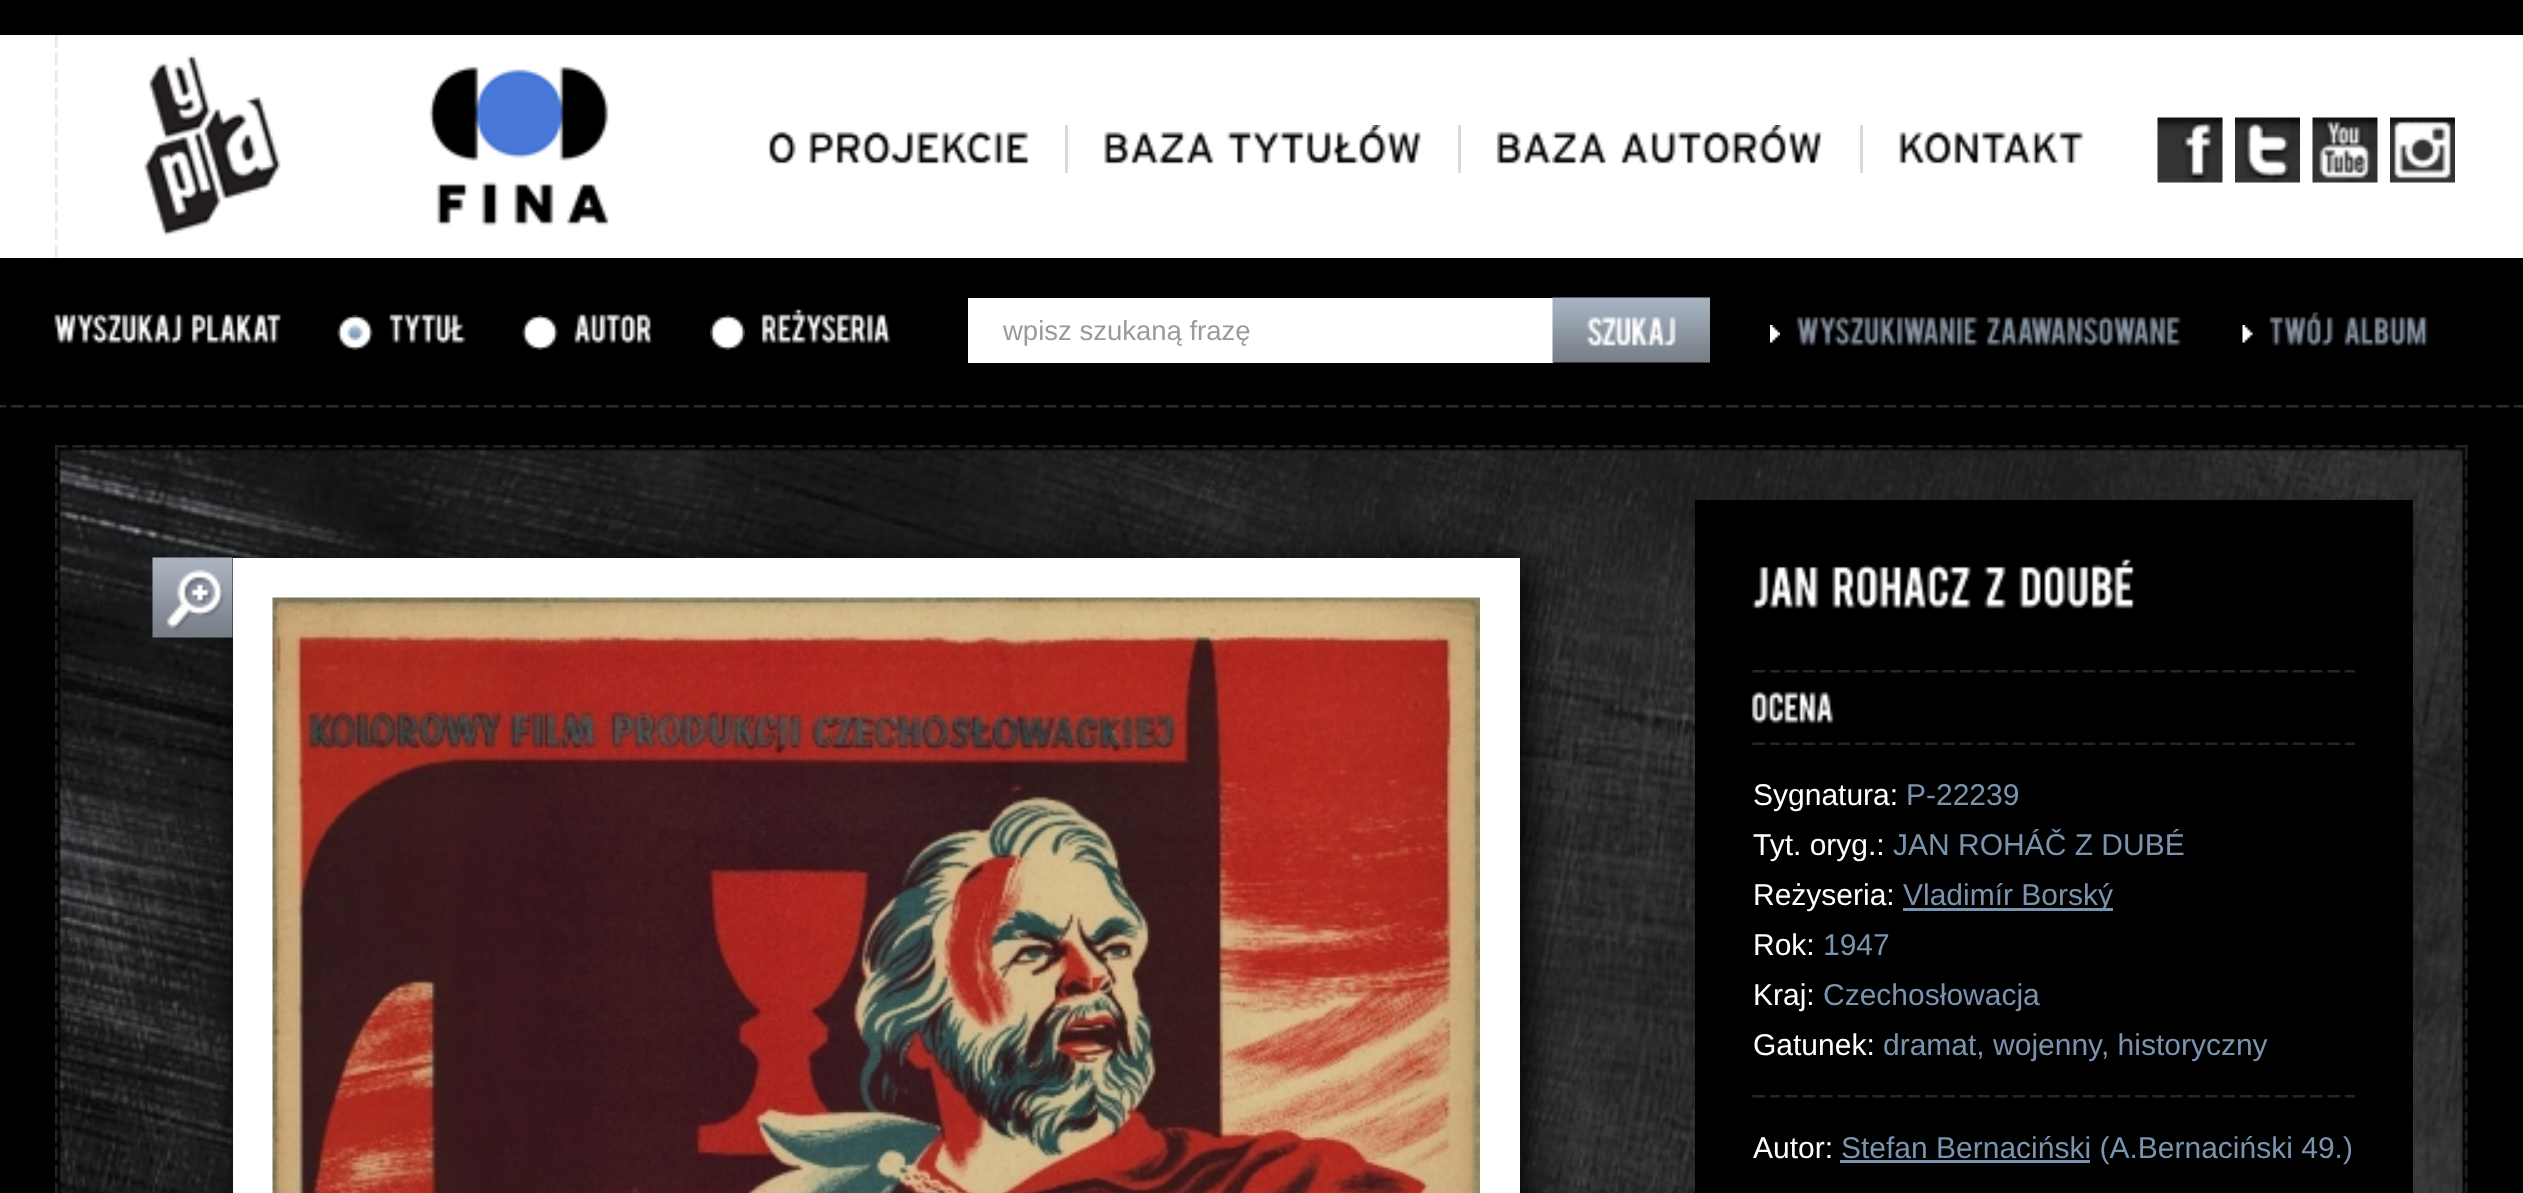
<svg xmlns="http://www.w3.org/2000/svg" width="2523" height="1193">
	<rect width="100%" height="100%" fill="#000000" />
	<rect x="0" y="35" width="2523" height="223" fill="#FFFFFF" />
	<image x="55" y="35" width="226" height="223" href="assets/img1.png" />
	<image x="429" y="66" width="180" height="160" href="assets/img2.png" />
	<rect x="1065" y="125" width="3" height="48" fill="#D9D9D9" />
	<image x="767" y="131" width="29" height="33" href="assets/img3.png" />
	<image x="809" y="131" width="220" height="33" href="assets/img4.png" />
	<rect x="1458" y="125" width="3" height="48" fill="#D9D9D9" />
	<image x="1104" y="131" width="110" height="33" href="assets/img5.png" />
	<image x="1227" y="125" width="194" height="39" href="assets/img6.png" />
	<rect x="1860" y="125" width="3" height="48" fill="#D9D9D9" />
	<image x="1496" y="131" width="110" height="33" href="assets/img7.png" />
	<image x="1620" y="125" width="203" height="39" href="assets/img8.png" />
	<image x="1899" y="131" width="185" height="33" href="assets/img9.png" />
	<image x="2157" y="117" width="66" height="66" href="assets/img10.png" />
	<image x="2235" y="117" width="65" height="66" href="assets/img11.png" />
	<image x="2312" y="117" width="66" height="66" href="assets/img12.png" />
	<image x="2390" y="117" width="65" height="66" href="assets/img13.png" />
	<image x="0" y="405" width="2523" height="3" href="assets/img14.png" />
	<image x="54" y="314" width="130" height="30" href="assets/img15.png" />
	<image x="191" y="314" width="90" height="30" href="assets/img16.png" />
	<image x="337" y="315" width="36" height="35" href="assets/img17.png" />
	<image x="389" y="314" width="77" height="30" href="assets/img18.png" />
	<image x="522" y="315" width="36" height="35" href="assets/img19.png" />
	<image x="574" y="314" width="79" height="30" href="assets/img20.png" />
	<image x="710" y="315" width="35" height="35" href="assets/img21.png" />
	<image x="761" y="309" width="130" height="35" href="assets/img22.png" />
	<rect x="968" y="298" width="585" height="65" fill="#FFFFFF" />
	<text x="1003" y="340" font-family="Liberation Sans" font-size="27.5" fill="#9A9A9A">wpisz szukaną frazę</text>
	<image x="1552" y="297" width="158" height="66" href="assets/img23.png" />
	<image x="1770" y="325" width="10" height="18" href="assets/img24.png" />
	<image x="1796" y="316" width="183" height="30" href="assets/img25.png" />
	<image x="1986" y="316" width="195" height="30" href="assets/img26.png" />
	<image x="2242" y="325" width="11" height="18" href="assets/img27.png" />
	<image x="2269" y="311" width="65" height="35" href="assets/img28.png" />
	<image x="2344" y="316" width="84" height="30" href="assets/img29.png" />
	<image x="55" y="445" width="2413" height="748" href="assets/img30.png" />
	<rect x="240" y="565" width="1288" height="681" fill="#000000" filter="blur(17.5px)" />
	<rect x="233" y="558" width="1287" height="635" fill="#FFFFFF" />
	<image x="152" y="557" width="81" height="81" href="assets/img31.png" />
	<image x="272" y="597" width="1208" height="596" href="assets/img32.png" />
	<rect x="1695" y="500" width="718" height="693" fill="#000000" />
	<image x="1752" y="566" width="67" height="43" href="assets/img33.png" />
	<image x="1832" y="564" width="139" height="45" href="assets/img34.png" />
	<image x="1984" y="566" width="22" height="43" href="assets/img35.png" />
	<image x="2019" y="559" width="116" height="50" href="assets/img36.png" />
	<image x="1752" y="670" width="603" height="3" href="assets/img37.png" />
	<image x="1751" y="691" width="83" height="33" href="assets/img38.png" />
	<image x="1752" y="742" width="603" height="3" href="assets/img39.png" />
	<text x="1753" y="805" font-family="Liberation Sans" font-size="30" fill="#FFFFFF">Sygnatura:</text>
	<text x="1906" y="805" font-family="Liberation Sans" font-size="30" fill="#7A93AF">P-22239</text>
	<text x="1753" y="855" font-family="Liberation Sans" font-size="30" fill="#FFFFFF">Tyt. oryg.:</text>
	<text x="1893" y="855" font-family="Liberation Sans" font-size="30" fill="#7A93AF">JAN ROHÁČ Z DUBÉ</text>
	<text x="1753" y="905" font-family="Liberation Sans" font-size="30" fill="#FFFFFF">Reżyseria:</text>
	<rect x="1903" y="908" width="210" height="3" fill="#7A93AF" />
	<text x="1903" y="905" font-family="Liberation Sans" font-size="30" fill="#7A93AF">Vladimír Borský</text>
	<text x="1753" y="955" font-family="Liberation Sans" font-size="30" fill="#FFFFFF">Rok:</text>
	<text x="1823" y="955" font-family="Liberation Sans" font-size="30" fill="#7A93AF">1947</text>
	<text x="1753" y="1005" font-family="Liberation Sans" font-size="30" fill="#FFFFFF">Kraj:</text>
	<text x="1823" y="1005" font-family="Liberation Sans" font-size="30" fill="#7A93AF">Czechosłowacja</text>
	<text x="1753" y="1055" font-family="Liberation Sans" font-size="30" fill="#FFFFFF">Gatunek:</text>
	<text x="1883" y="1055" font-family="Liberation Sans" font-size="30" fill="#7A93AF">dramat, wojenny, historyczny</text>
	<image x="1752" y="1095" width="603" height="3" href="assets/img37.png" />
	<text x="1753" y="1158" font-family="Liberation Sans" font-size="30" fill="#FFFFFF">Autor:</text>
	<rect x="1840" y="1160" width="250" height="3" fill="#7A93AF" />
	<text x="1841" y="1158" font-family="Liberation Sans" font-size="30" fill="#7A93AF">Stefan Bernaciński (A.Bernaciński 49.)</text>
</svg>
